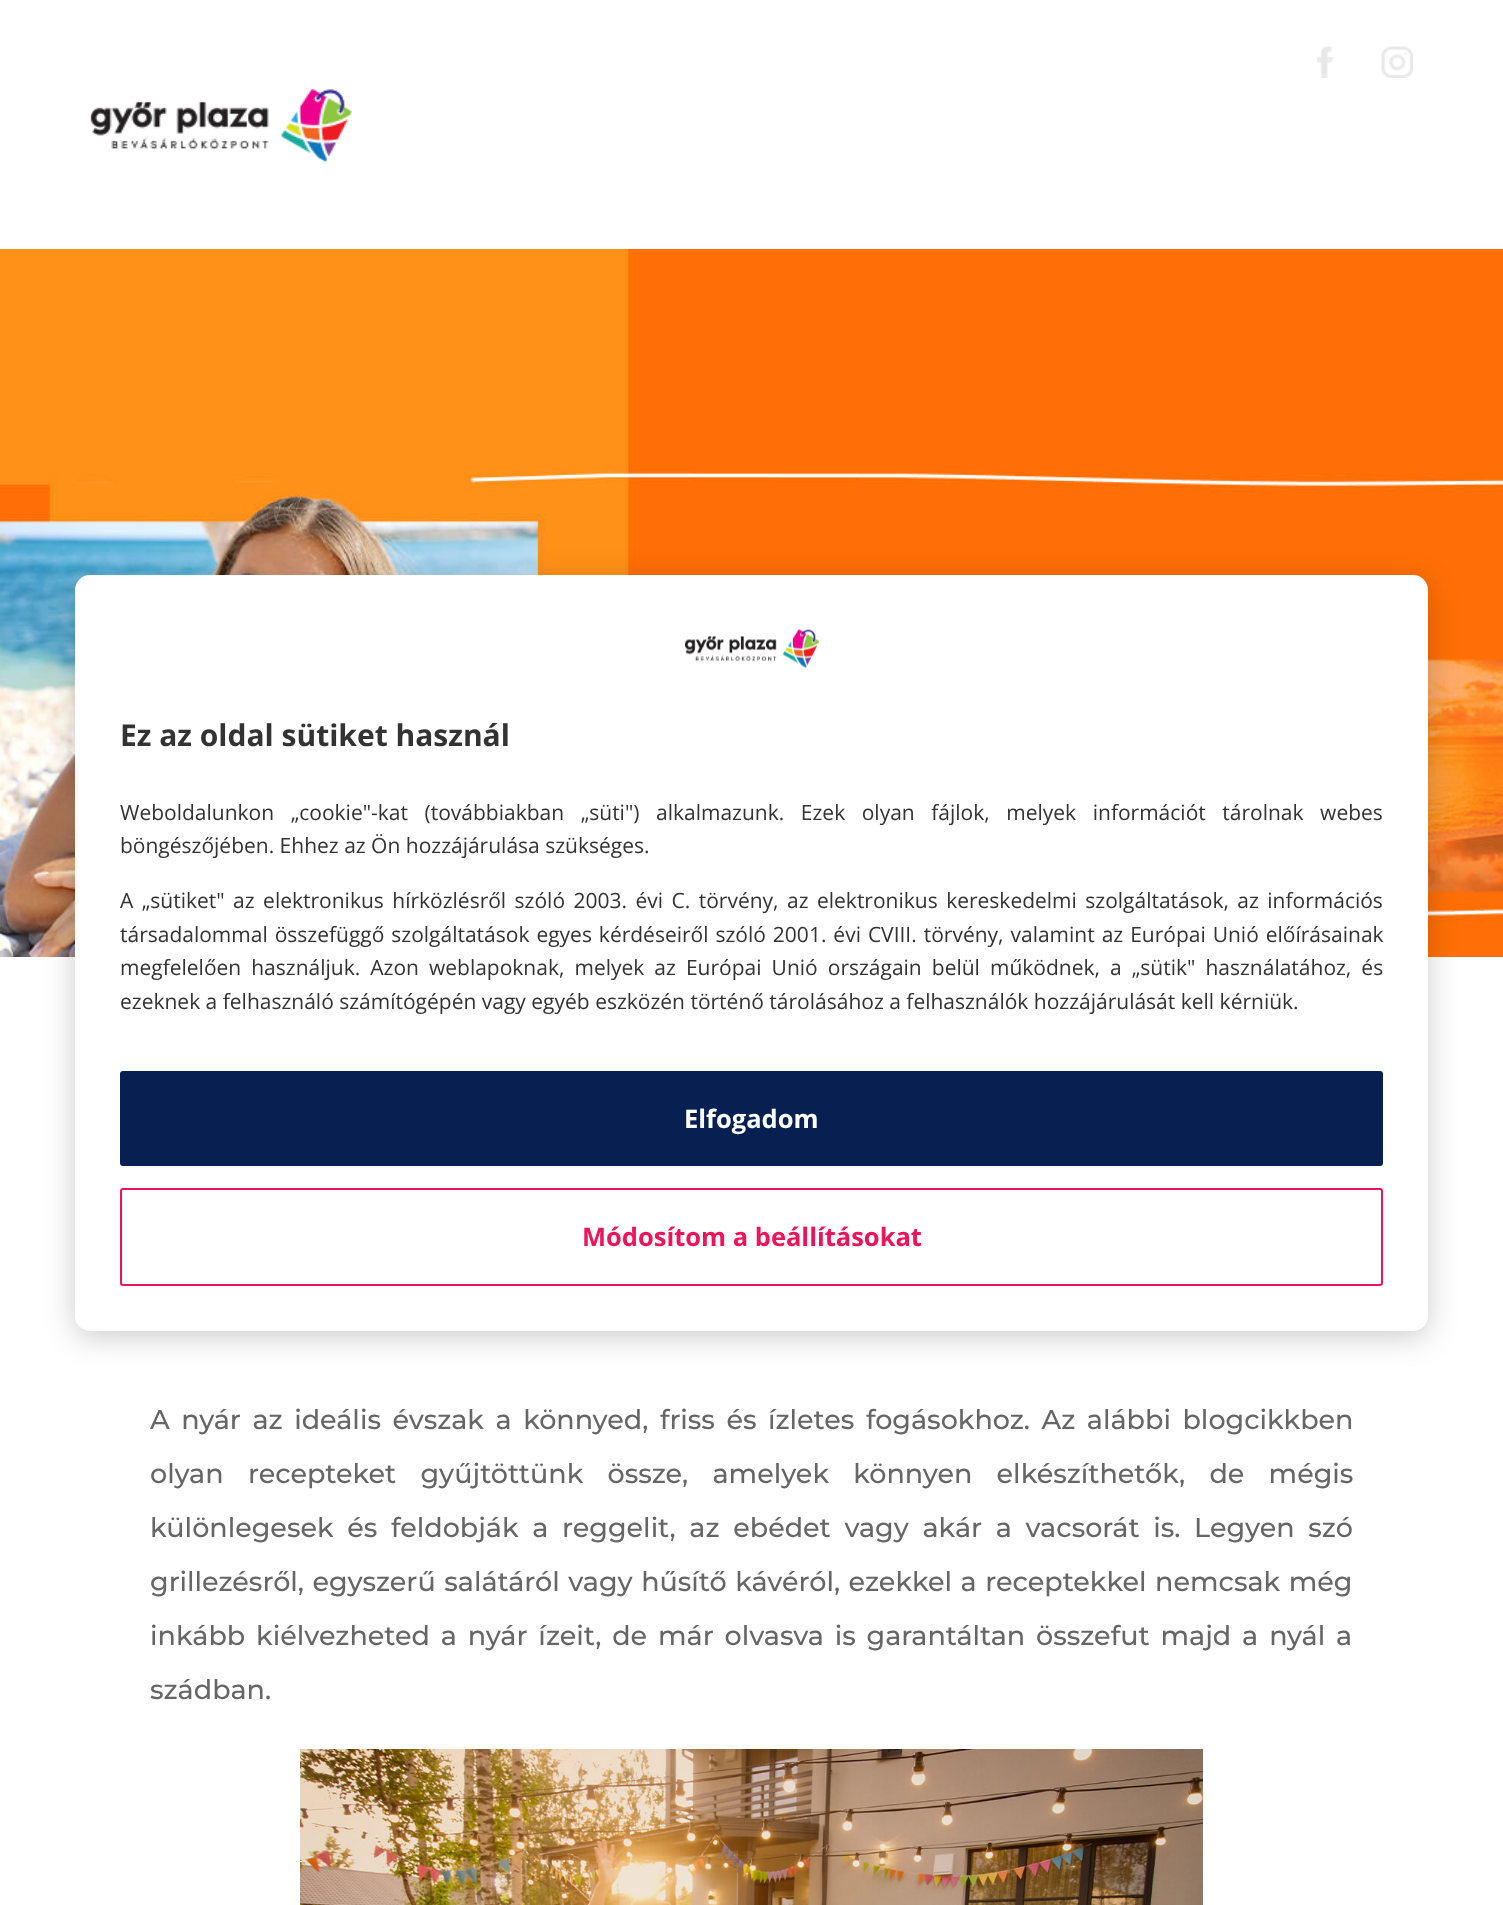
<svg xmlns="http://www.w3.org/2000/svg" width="1503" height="1905">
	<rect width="100%" height="100%" fill="#FFFFFF" />
	<image x="0" y="249" width="1503" height="708" href="assets/img5.png" />
	<rect x="75" y="581" width="1353" height="756" rx="15" fill="#000000" fill-opacity="0.2" filter="blur(15px)" />
	<rect x="75" y="575" width="1353" height="756" rx="15" fill="#FFFFFF" />
	<image x="685" y="629" width="135" height="39" href="assets/img1.png" />
	<text x="120" y="746" font-family="Open Sans" font-size="30" font-weight="700" fill="#333333">Ez az oldal sütiket használ</text>
	<g font-family="Open Sans" font-size="21" fill="#333333">
		<text x="120" y="820" word-spacing="11.1">Weboldalunkon „cookie"-kat (továbbiakban „süti") alkalmazunk. Ezek olyan fájlok, melyek információt tárolnak webes</text>
		<text x="120" y="853">böngészőjében. Ehhez az Ön hozzájárulása szükséges.</text>
		<text x="120" y="908" word-spacing="3">A „sütiket" az elektronikus hírközlésről szóló 2003. évi C. törvény, az elektronikus kereskedelmi szolgáltatások, az információs</text>
		<text x="120" y="942" word-spacing="1.5">társadalommal összefüggő szolgáltatások egyes kérdéseiről szóló 2001. évi CVIII. törvény, valamint az Európai Unió előírásainak</text>
		<text x="120" y="975" word-spacing="4.6">megfelelően használjuk. Azon weblapoknak, melyek az Európai Unió országain belül működnek, a „sütik" használatához, és</text>
		<text x="120" y="1009">ezeknek a felhasználó számítógépén vagy egyéb eszközén történő tárolásához a felhasználók hozzájárulását kell kérniük.</text>
	</g>
	<rect x="120" y="1071" width="1263" height="95" rx="3" fill="#082051" />
	<text x="684" y="1128" font-family="Open Sans" font-size="25.5" font-weight="700" fill="#FFFFFF">Elfogadom</text>
	<rect x="121" y="1189" width="1261" height="96" rx="2" fill="none" stroke="#ED145B" stroke-width="2" />
	<text x="582" y="1246" font-family="Open Sans" font-size="25.5" font-weight="700" fill="#ED145B">Módosítom a beállításokat</text>
	<image x="1317" y="46" width="17" height="32" href="assets/img2.png" />
	<image x="1381" y="46" width="32" height="32" href="assets/img3.png" />
	<image x="90" y="89" width="262" height="73" href="assets/img4.png" />
	<g font-family="Montserrat" font-size="27" font-weight="100" fill="#666666">
		<text x="150" y="1429" word-spacing="4.25">A nyár az ideális évszak a könnyed, friss és ízletes fogásokhoz. Az alábbi blogcikkben</text>
		<text x="150" y="1483" word-spacing="17">olyan recepteket gyűjtöttünk össze, amelyek könnyen elkészíthetők, de mégis</text>
		<text x="150" y="1537" word-spacing="6.4">különlegesek és feldobják a reggelit, az ebédet vagy akár a vacsorát is. Legyen szó</text>
		<text x="150" y="1591" word-spacing="1.25">grillezésről, egyszerű salátáról vagy hűsítő kávéról, ezekkel a receptekkel nemcsak még</text>
		<text x="150" y="1645" word-spacing="3.6">inkább kiélvezheted a nyár ízeit, de már olvasva is garantáltan összefut majd a nyál a</text>
		<text x="150" y="1699">szádban.</text>
	</g>
	<image x="300" y="1749" width="903" height="156" href="assets/img6.png" />
</svg>
